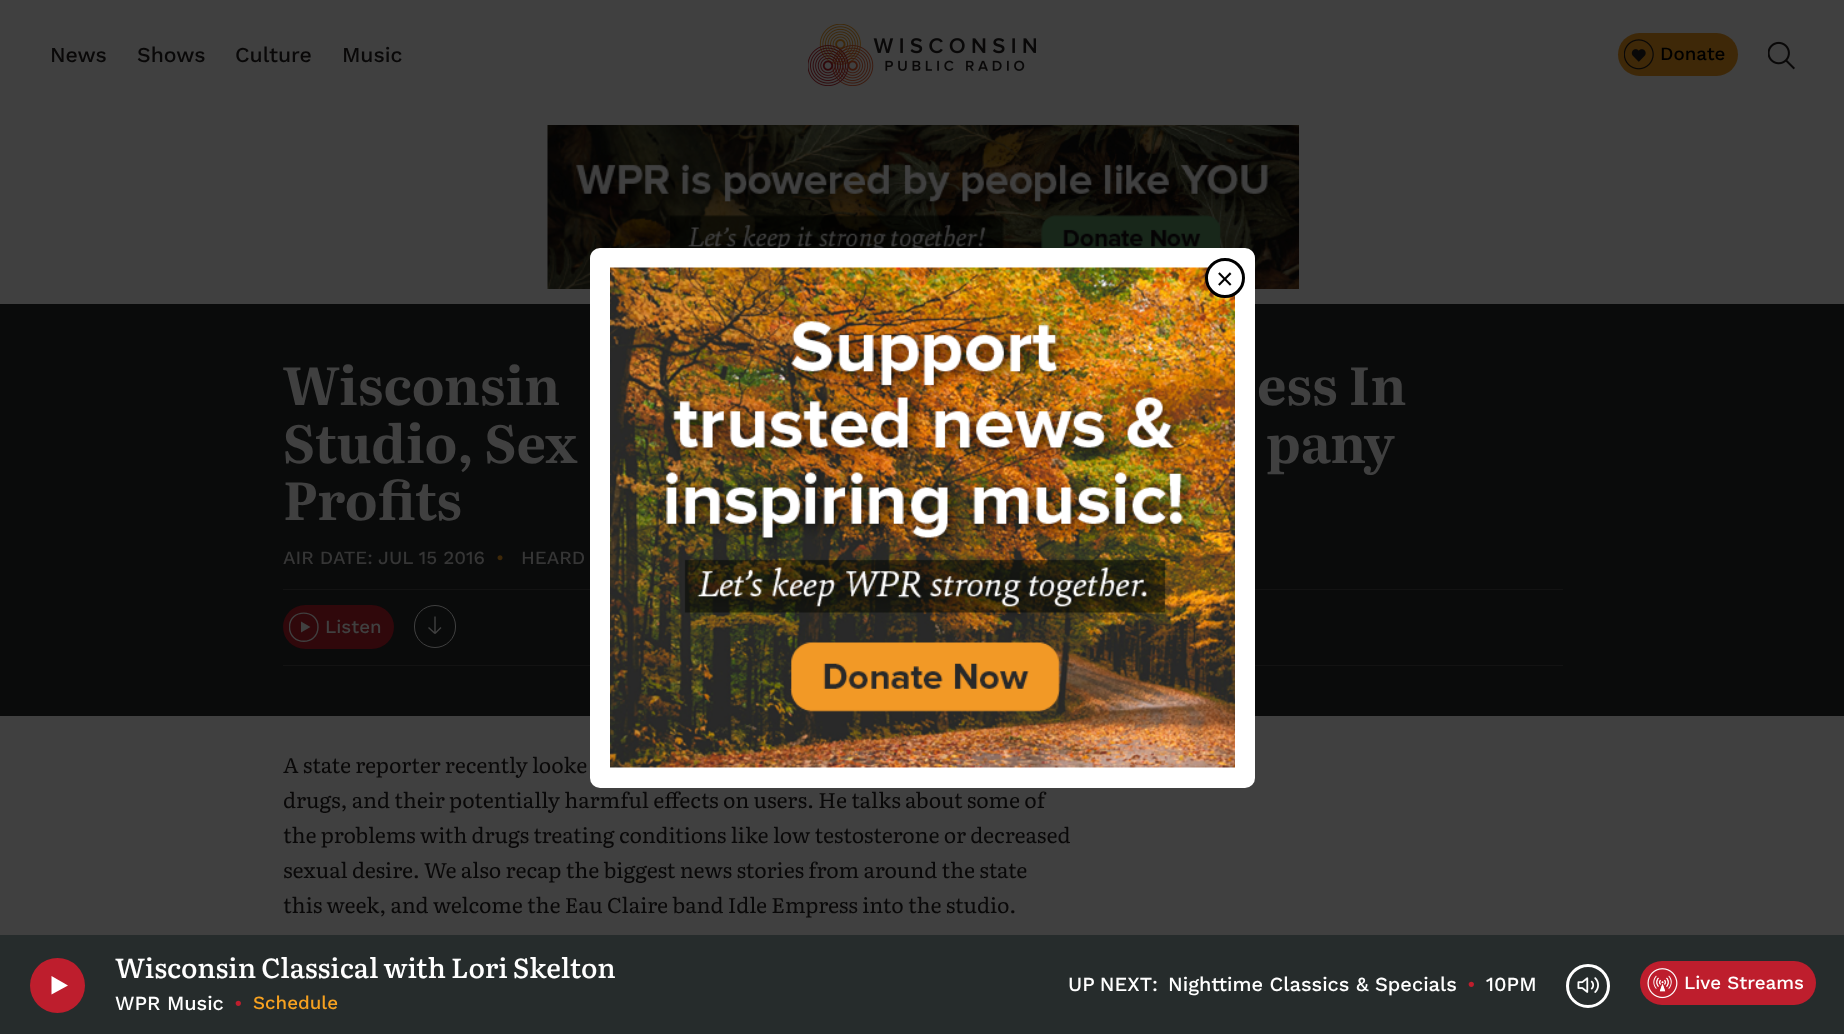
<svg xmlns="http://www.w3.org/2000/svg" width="1844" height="1034">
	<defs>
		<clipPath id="clip1"><rect x="289" y="611" width="30" height="32" /></clipPath>
	</defs>
	<rect width="100%" height="100%" fill="#404040" />
	<g font-family="Work Sans" font-size="21.25" font-weight="500" fill="#090808">
		<text x="50" y="62">News</text>
		<text x="137" y="62">Shows</text>
		<text x="235" y="62">Culture</text>
		<text x="342" y="62">Music</text>
	</g>
	<image x="808" y="24" width="228" height="62" href="assets/img1.png" />
	<rect x="1618" y="33" width="120" height="43" rx="21.5" fill="#3E2808" />
	<image x="1624" y="39" width="30" height="31" href="assets/img2.png" />
	<text x="1660" y="60" font-family="Work Sans" font-size="18.75" font-weight="500" fill="#000000">Donate</text>
	<image x="1768" y="41" width="27" height="29" href="assets/img3.png" />
	<image x="547" y="125" width="752" height="164" href="assets/img4.png" />
	<rect x="0" y="304" width="1844" height="412" fill="#0A0B0B" />
	<rect x="283" y="589" width="1280" height="1" fill="#131313" />
	<rect x="283" y="665" width="1280" height="1" fill="#131313" />
	<rect x="590" y="248" width="665" height="540" rx="10" fill="#FFFFFF" />
	<image x="610" y="267" width="625" height="501" href="assets/img5.png" />
	<circle cx="1225" cy="278" r="18.5" fill="#FFFFFF" stroke="#000000" stroke-width="3" />
	<text x="1216" y="289" font-family="Liberation Sans" font-size="30" fill="#000000">×</text>
	<rect x="0" y="935" width="1844" height="99" fill="#262C2C" />
	<circle cx="57.5" cy="985.5" r="27.5" fill="#BE1E2D" />
	<path d="M51.5 976V994.5L68 985.5Z" fill="#FFFFFF" />
	<text x="115" y="978" word-spacing="-0.5" font-family="Literata" font-size="27.5" font-weight="500" fill="#FFFFFF">Wisconsin Classical with Lori Skelton</text>
	<text x="115" y="1010" font-family="Work Sans" font-size="20" font-weight="500" fill="#FFFFFF">WPR Music</text>
	<text x="234" y="1010" font-family="Work Sans" font-size="20" font-weight="500" fill="#BE1E2D">•</text>
	<text x="253" y="1009" font-family="Work Sans" font-size="18.75" font-weight="500" fill="#F6A120">Schedule</text>
	<g font-family="Work Sans" font-size="20" font-weight="500" fill="#FFFFFF">
		<text x="1068" y="991" word-spacing="-1">UP NEXT</text>
		<text x="1152" y="991">:</text>
		<text x="1168" y="991">Nighttime Classics &amp; Specials</text>
	</g>
	<text x="1467" y="991" font-family="Work Sans" font-size="20" font-weight="500" fill="#BE1E2D">•</text>
	<text x="1486" y="991" font-family="Work Sans" font-size="20" font-weight="500" fill="#FFFFFF">10PM</text>
	<circle cx="1588" cy="986" r="20.5" fill="none" stroke="#FFFFFF" stroke-width="3" />
	<image x="1577" y="977" width="22" height="16" href="assets/img6.png" />
	<rect x="1640" y="961" width="176" height="44" rx="22" fill="#BE1E2D" />
	<image x="1647" y="968" width="31" height="31" href="assets/img7.png" />
	<text x="1684" y="989" font-family="Work Sans" font-size="18.75" font-weight="500" fill="#FFFFFF">Live Streams</text>
	<g font-family="Literata" font-size="52.5" font-weight="700" fill="#404040">
		<text x="283" y="405">Wisconsin</text>
		<text x="1257" y="405">ess In</text>
		<text x="283" y="463">Studio, Sex</text>
		<text x="1266" y="463">pany</text>
		<text x="283" y="520">Profits</text>
	</g>
	<g font-family="Work Sans" font-size="18.75" font-weight="500" fill="#363636">
		<text x="283" y="564">AIR DATE:</text>
		<text x="378" y="564">JUL 15 2016</text>
	</g>
	<text x="496" y="564" font-family="Work Sans" font-size="18.75" font-weight="500" fill="#3E2808">•</text>
	<text x="521" y="564" font-family="Work Sans" font-size="18.75" font-weight="500" fill="#363636">HEARD</text>
	<rect x="283" y="605" width="111" height="44" rx="22" fill="#30080B" />
	<g clip-path="url(#clip1)">
		<path d="M289.5 627C289.5 608.5 318 608.5 318 627C318 646 289.5 646 289.5 627Z" fill="none" stroke="#404040" stroke-width="1.4" />
	</g>
	<path d="M301 621.5V632.5L310.5 627Z" fill="#404040" />
	<text x="325" y="633" font-family="Work Sans" font-size="18.75" font-weight="500" fill="#404040">Listen</text>
	<rect x="414.5" y="605.5" width="41" height="42" rx="20.5" fill="none" stroke="#404040" />
	<path d="M435 633.5L428.5 627.5M435 633.5V616.5M435 633.5L441 627.5" fill="none" stroke="#404040" stroke-width="1.4" />
	<g font-family="Literata" font-size="21.25" fill="#090808">
		<text x="283" y="773">A state reporter recently looke</text>
		<text x="283" y="808">drugs, and their potentially harmful effects on users. He talks about some of</text>
		<text x="283" y="843">the problems with drugs treating conditions like low testosterone or decreased</text>
		<text x="283" y="878">sexual desire. We also recap the biggest news stories from around the state</text>
		<text x="283" y="913">this week, and welcome the Eau Claire band Idle Empress into the studio.</text>
	</g>
</svg>
